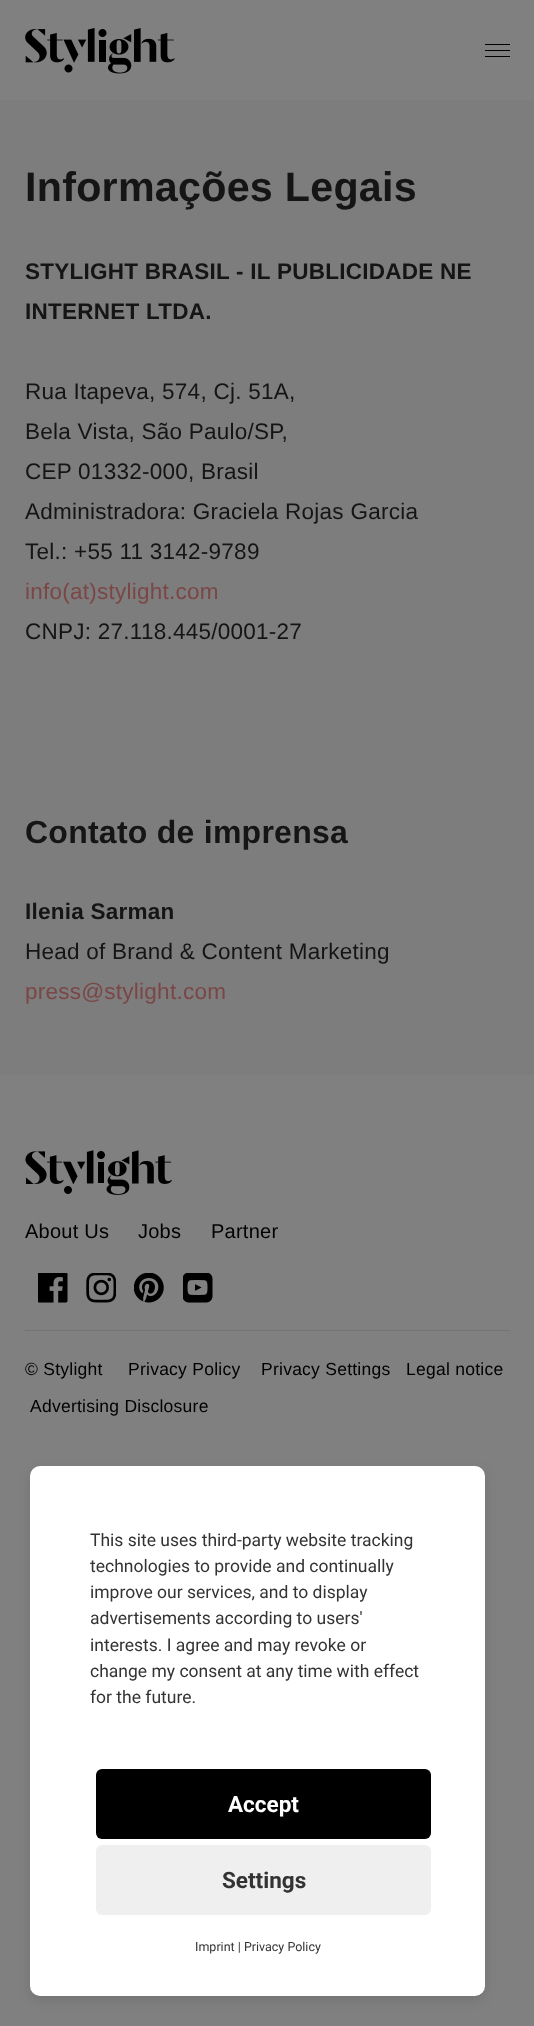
<svg xmlns="http://www.w3.org/2000/svg" width="534" height="2026">
	<rect width="100%" height="100%" fill="#808080" />
	<image x="25" y="28" width="150" height="46" href="assets/img1.png" />
	<rect x="485" y="50" width="25" height="1" fill="#000000" />
	<rect x="485" y="44" width="25" height="1" fill="#000000" />
	<rect x="485" y="56" width="25" height="1" fill="#000000" />
	<rect x="0" y="100" width="534" height="975" fill="#7D7D7D" />
	<text x="25" y="201" font-family="Liberation Sans" font-size="41.25" font-weight="700" letter-spacing="0.25" fill="#151516">Informações Legais</text>
	<g font-family="Liberation Sans" font-size="22.5" font-weight="700" letter-spacing="0.25" fill="#151516">
		<text x="25" y="279">STYLIGHT BRASIL - IL PUBLICIDADE NE</text>
		<text x="25" y="319">INTERNET LTDA.</text>
	</g>
	<g font-family="Liberation Sans" font-size="22.5" letter-spacing="0.25" fill="#151516">
		<text x="25" y="399">Rua Itapeva, 574, Cj. 51A,</text>
		<text x="25" y="439">Bela Vista, São Paulo/SP,</text>
		<text x="25" y="479">CEP 01332-000, Brasil</text>
		<text x="25" y="519">Administradora: Graciela Rojas Garcia</text>
		<text x="25" y="559">Tel.: +55 11 3142-9789</text>
	</g>
	<text x="25" y="599" font-family="Liberation Sans" font-size="22.5" letter-spacing="0.25" fill="#7A4746">info(at)stylight.com</text>
	<text x="25" y="639" font-family="Liberation Sans" font-size="22.5" letter-spacing="0.25" fill="#151516">CNPJ: 27.118.445/0001-27</text>
	<text x="25" y="843" font-family="Liberation Sans" font-size="32" font-weight="700" letter-spacing="0.25" fill="#151516">Contato de imprensa</text>
	<text x="25" y="919" font-family="Liberation Sans" font-size="22.5" font-weight="700" letter-spacing="0.25" fill="#151516">Ilenia Sarman</text>
	<text x="25" y="959" font-family="Liberation Sans" font-size="22.5" letter-spacing="0.25" fill="#151516">Head of Brand &amp; Content Marketing</text>
	<text x="25" y="999" font-family="Liberation Sans" font-size="22.5" letter-spacing="0.25" fill="#7A4746">press@stylight.com</text>
	<image x="25" y="1150" width="147" height="45" href="assets/img2.png" />
	<g font-family="Liberation Sans" font-size="20" letter-spacing="0.25" fill="#000000">
		<text x="25" y="1238">About Us</text>
		<text x="138" y="1238">Jobs</text>
		<text x="211" y="1238">Partner</text>
	</g>
	<image x="38" y="1273" width="30" height="30" href="assets/img3.png" />
	<image x="86" y="1273" width="30" height="30" href="assets/img4.png" />
	<image x="134" y="1273" width="30" height="30" href="assets/img5.png" />
	<image x="183" y="1273" width="30" height="30" href="assets/img6.png" />
	<rect x="25" y="1330" width="485" height="1" fill="#747474" />
	<g font-family="Liberation Sans" font-size="17.5" letter-spacing="0.25" fill="#000000">
		<text x="25" y="1375">© Stylight</text>
		<text x="128" y="1375">Privacy Policy</text>
		<text x="261" y="1375">Privacy Settings</text>
		<text x="406" y="1375">Legal notice</text>
		<text x="30" y="1412">Advertising Disclosure</text>
	</g>
	<rect x="30" y="1470" width="455" height="530" rx="10" fill="#000000" fill-opacity="0.1" filter="blur(6px)" />
	<rect x="30" y="1466" width="455" height="530" rx="10" fill="#FFFFFF" />
	<g font-family="Roboto" font-size="17.5" fill="#333333">
		<text x="90" y="1546">This site uses third-party website tracking</text>
		<text x="90" y="1572">technologies to provide and continually</text>
		<text x="90" y="1598">improve our services, and to display</text>
		<text x="90" y="1624">advertisements according to users'</text>
		<text x="90" y="1651">interests. I agree and may revoke or</text>
		<text x="90" y="1677">change my consent at any time with effect</text>
		<text x="90" y="1703">for the future.</text>
	</g>
	<rect x="96" y="1769" width="335" height="70" rx="6" fill="#000000" />
	<text x="228" y="1812" font-family="Roboto" font-size="22.5" font-weight="700" fill="#FFFFFF">Accept</text>
	<rect x="96" y="1845" width="335" height="70" rx="6" fill="#EFEFEF" />
	<text x="222" y="1888" font-family="Roboto" font-size="22.5" font-weight="700" fill="#333333">Settings</text>
	<text x="195" y="1951" font-family="Roboto" font-size="12.5" fill="#333333">Imprint | Privacy Policy</text>
</svg>
